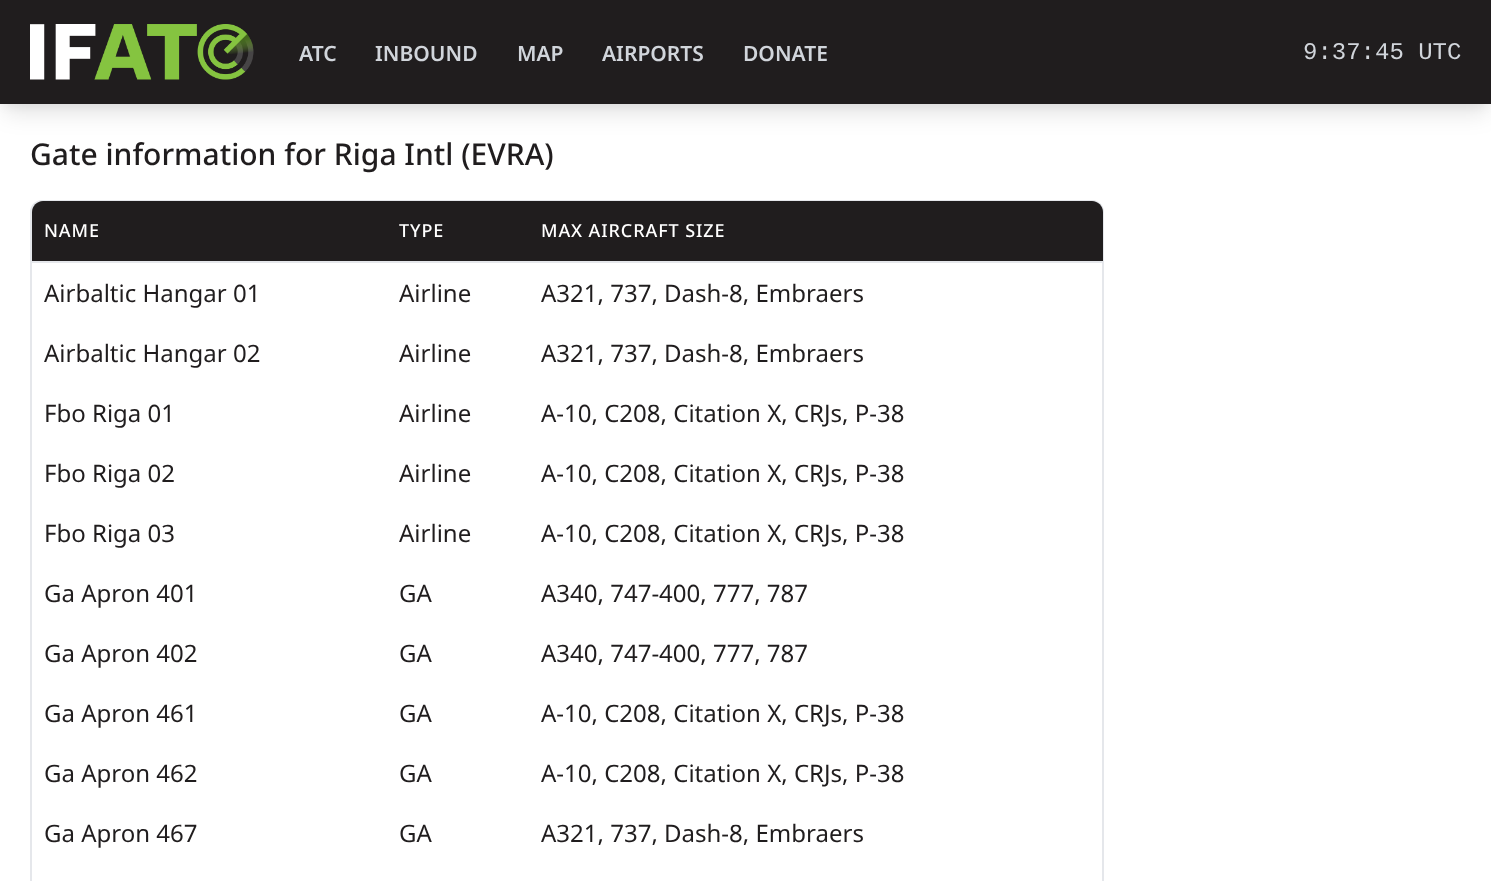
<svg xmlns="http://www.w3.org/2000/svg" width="1491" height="881">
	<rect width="100%" height="100%" fill="#FFFFFF" />
	<rect x="3" y="9" width="1485" height="98" fill="#000000" fill-opacity="0.05" filter="blur(4.5px)" />
	<rect x="5" y="20" width="1482" height="94" fill="#000000" fill-opacity="0.1" filter="blur(11px)" />
	<rect x="0" y="0" width="1491" height="104" fill="#201D1E" />
	<image x="30" y="24" width="224" height="56" href="assets/img1.png" />
	<g font-family="Noto Sans" font-size="21" font-weight="600" fill="#D1D5DB">
		<text x="299" y="61">ATC</text>
		<text x="375" y="61">INBOUND</text>
		<text x="517" y="61">MAP</text>
		<text x="602" y="61">AIRPORTS</text>
		<text x="743" y="61">DONATE</text>
	</g>
	<text x="1303" y="59" font-family="Liberation Mono" font-size="24" fill="#D1D5DB">9:37:45 UTC</text>
	<text x="30" y="165" font-family="Noto Sans" font-size="30" font-weight="500" fill="#201D1E">Gate information for Riga Intl (EVRA)</text>
	<rect x="31" y="201" width="1072" height="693" rx="11" fill="none" stroke="#E5E7EB" stroke-width="2" />
	<path d="M43 201H1092C1098 201 1103 206 1103 212V263H32V212C32 206 37 201 43 201Z" fill="#201D1E" />
	<g font-family="Noto Sans" font-size="18" font-weight="500" letter-spacing="0.9" fill="#FFFFFF">
		<text x="44" y="237">NAME</text>
		<text x="399" y="237">TYPE</text>
		<text x="541" y="237">MAX AIRCRAFT SIZE</text>
	</g>
	<rect x="32" y="261" width="1071" height="2" fill="#E5E7EB" />
	<g font-family="Noto Sans" font-size="24" fill="#201D1E">
		<text x="44" y="302">Airbaltic Hangar 01</text>
		<text x="399" y="302">Airline</text>
		<text x="541" y="302">A321, 737, Dash-8, Embraers</text>
		<text x="44" y="362">Airbaltic Hangar 02</text>
		<text x="399" y="362">Airline</text>
		<text x="541" y="362">A321, 737, Dash-8, Embraers</text>
		<text x="44" y="422">Fbo Riga 01</text>
		<text x="399" y="422">Airline</text>
		<text x="541" y="422">A-10, C208, Citation X, CRJs, P-38</text>
		<text x="44" y="482">Fbo Riga 02</text>
		<text x="399" y="482">Airline</text>
		<text x="541" y="482">A-10, C208, Citation X, CRJs, P-38</text>
		<text x="44" y="542">Fbo Riga 03</text>
		<text x="399" y="542">Airline</text>
		<text x="541" y="542">A-10, C208, Citation X, CRJs, P-38</text>
		<text x="44" y="602">Ga Apron 401</text>
		<text x="399" y="602">GA</text>
		<text x="541" y="602">A340, 747-400, 777, 787</text>
		<text x="44" y="662">Ga Apron 402</text>
		<text x="399" y="662">GA</text>
		<text x="541" y="662">A340, 747-400, 777, 787</text>
		<text x="44" y="722">Ga Apron 461</text>
		<text x="399" y="722">GA</text>
		<text x="541" y="722">A-10, C208, Citation X, CRJs, P-38</text>
		<text x="44" y="782">Ga Apron 462</text>
		<text x="399" y="782">GA</text>
		<text x="541" y="782">A-10, C208, Citation X, CRJs, P-38</text>
		<text x="44" y="842">Ga Apron 467</text>
		<text x="399" y="842">GA</text>
		<text x="541" y="842">A321, 737, Dash-8, Embraers</text>
	</g>
</svg>
